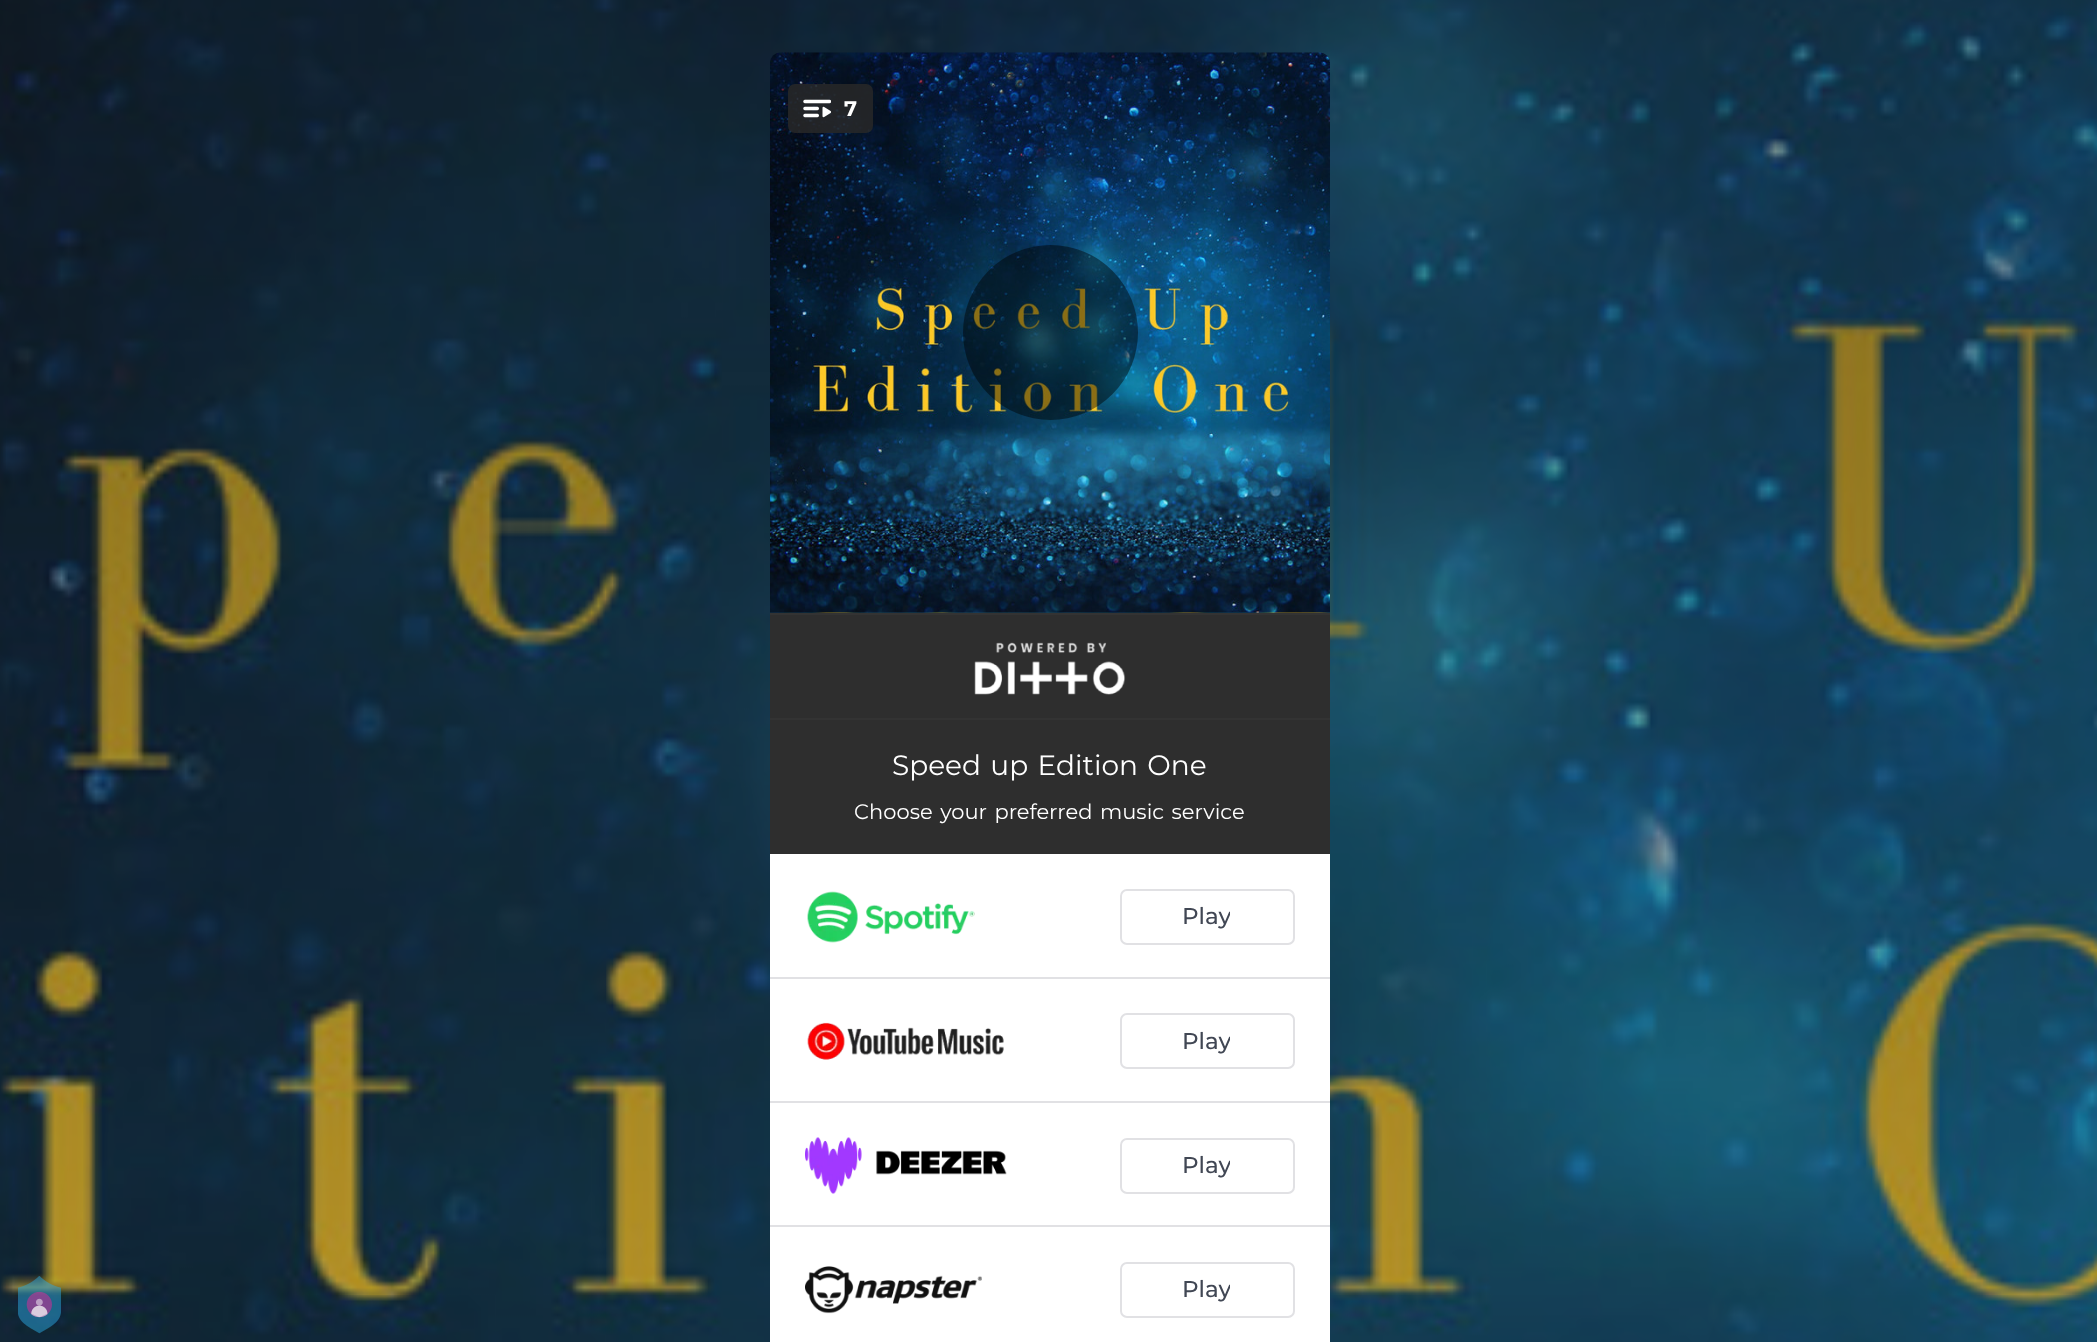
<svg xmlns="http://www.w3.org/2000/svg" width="2097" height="1342">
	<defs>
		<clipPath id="clip1"><rect x="1183" y="900" width="47" height="35" /></clipPath>
		<clipPath id="clip2"><rect x="1183" y="1024" width="47" height="35" /></clipPath>
		<clipPath id="clip3"><rect x="1183" y="1148" width="47" height="35" /></clipPath>
		<clipPath id="clip4"><rect x="1183" y="1272" width="47" height="35" /></clipPath>
	</defs>
	<rect width="100%" height="100%" fill="#FFFFFF" />
	<image x="0" y="0" width="2097" height="1342" href="assets/img2.png" />
	<image x="18" y="1276" width="43" height="58" href="assets/img1.png" />
	<image x="770" y="52" width="560" height="561" href="assets/img3.png" />
	<rect x="788" y="84" width="85" height="49" rx="7" fill="#282828" fill-opacity="0.85" />
	<image x="803" y="99" width="28" height="19" href="assets/img4.png" />
	<text x="844" y="116" font-family="Montserrat" font-size="21" font-weight="700" fill="#FFFFFF">7</text>
	<circle cx="1050.5" cy="332.5" r="87.5" fill="#000000" fill-opacity="0.45" />
	<rect x="770" y="615" width="560" height="103" fill="#2E2E2E" />
	<rect x="770" y="613" width="560" height="2" fill="#333333" />
	<rect x="770" y="718" width="560" height="2" fill="#333333" />
	<image x="974" y="642" width="152" height="53" href="assets/img5.png" />
	<rect x="770" y="720" width="560" height="134" fill="#2E2E2E" />
	<text x="892" y="775" word-spacing="2" font-family="Montserrat" font-size="28" fill="#FFFFFF">Speed up Edition One</text>
	<text x="854" y="819" word-spacing="2" font-family="Montserrat" font-size="21" fill="#FFFFFF">Choose your preferred music service</text>
	<rect x="770" y="854" width="560" height="488" fill="#FFFFFF" />
	<rect x="770" y="977" width="560" height="2" fill="#E1E1E4" />
	<image x="807" y="891" width="168" height="52" href="assets/img6.png" />
	<rect x="1121" y="890" width="173" height="54" rx="6" fill="none" stroke="#E1E1E4" stroke-width="2" />
	<g clip-path="url(#clip1)">
		<text x="1182" y="924" font-family="Montserrat" font-size="23" font-weight="500" fill="#414754">Play</text>
	</g>
	<rect x="770" y="1101" width="560" height="2" fill="#E1E1E4" />
	<image x="807" y="1022" width="197" height="38" href="assets/img7.png" />
	<rect x="1121" y="1014" width="173" height="54" rx="6" fill="none" stroke="#E1E1E4" stroke-width="2" />
	<g clip-path="url(#clip2)">
		<text x="1182" y="1049" font-family="Montserrat" font-size="23" font-weight="500" fill="#414754">Play</text>
	</g>
	<rect x="770" y="1225" width="560" height="2" fill="#E1E1E4" />
	<image x="805" y="1137" width="202" height="57" href="assets/img8.png" />
	<rect x="1121" y="1139" width="173" height="54" rx="6" fill="none" stroke="#E1E1E4" stroke-width="2" />
	<g clip-path="url(#clip3)">
		<text x="1182" y="1173" font-family="Montserrat" font-size="23" font-weight="500" fill="#414754">Play</text>
	</g>
	<image x="805" y="1266" width="177" height="48" href="assets/img9.png" />
	<rect x="1121" y="1263" width="173" height="54" rx="6" fill="none" stroke="#E1E1E4" stroke-width="2" />
	<g clip-path="url(#clip4)">
		<text x="1182" y="1297" font-family="Montserrat" font-size="23" font-weight="500" fill="#414754">Play</text>
	</g>
</svg>
